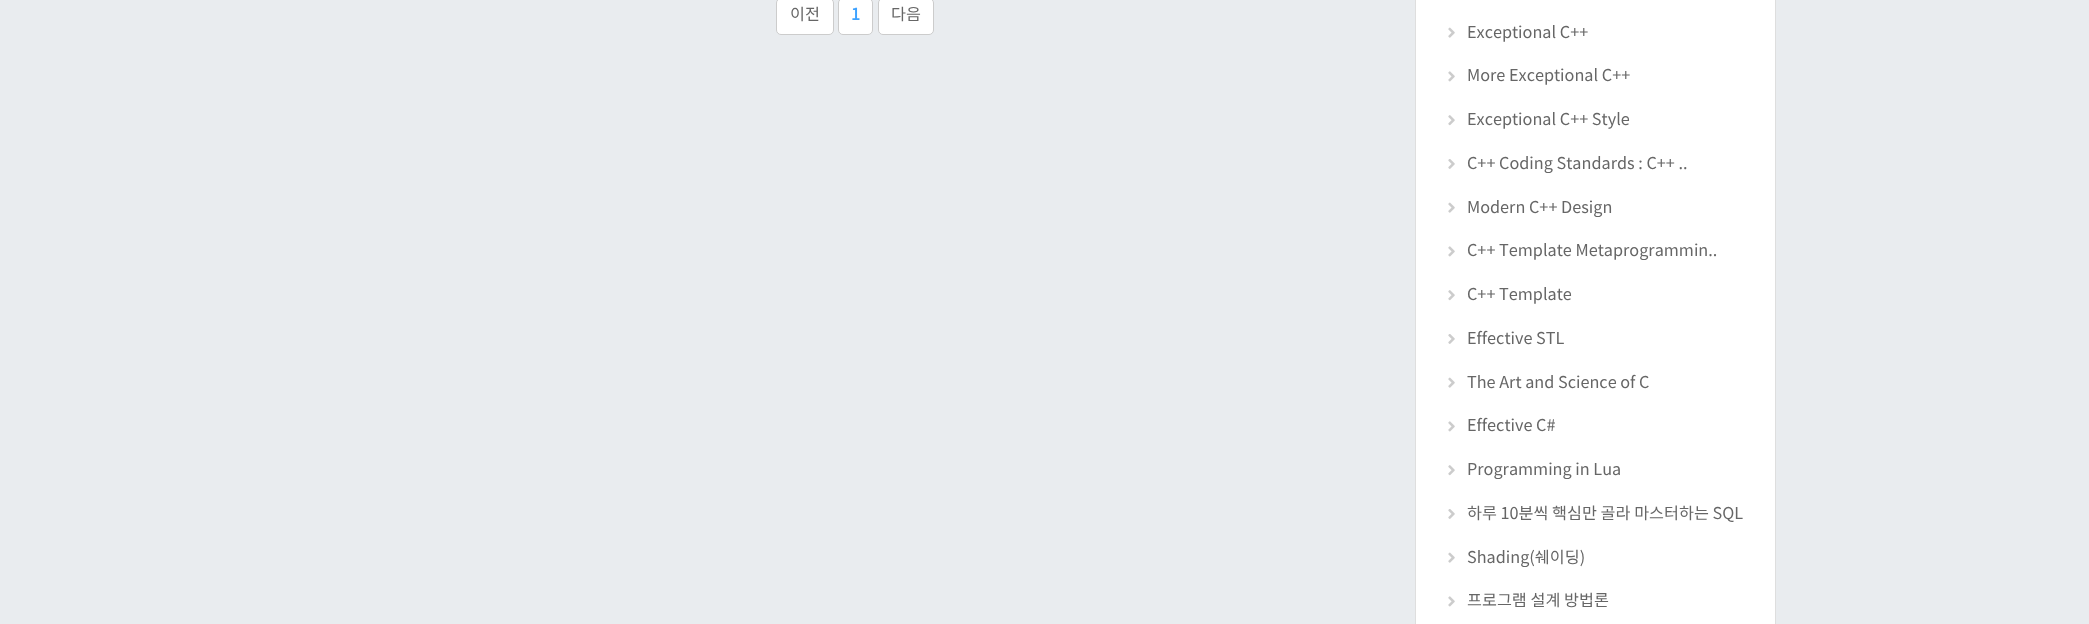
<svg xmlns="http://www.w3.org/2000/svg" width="2089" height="624">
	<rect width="100%" height="100%" fill="#E9ECEF" />
	<rect x="776.5" y="-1.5" width="57" height="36" rx="4.5" fill="#FFFFFF" stroke="#CCCCCC" />
	<text x="790" y="20" font-family="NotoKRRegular" font-size="16.25" fill="#666666">이전</text>
	<rect x="838.5" y="-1.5" width="34" height="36" rx="4.5" fill="#FFFFFF" stroke="#CCCCCC" />
	<text x="851" y="20" font-family="NotoKRRegular" font-size="16.25" font-weight="700" fill="#3EA2FF">1</text>
	<rect x="878.5" y="-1.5" width="55" height="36" rx="4.5" fill="#FFFFFF" stroke="#CCCCCC" />
	<text x="891" y="20" font-family="NotoKRRegular" font-size="16.25" fill="#666666">다음</text>
	<rect x="1415.5" y="-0.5" width="360" height="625" fill="#FFFFFF" stroke="#DEDEDE" />
	<image x="1448" y="27" width="7" height="11" href="assets/img1.png" />
	<text x="1467" y="38" font-family="NotoKRRegular" font-size="16.25" fill="#666666">Exceptional C++</text>
	<image x="1448" y="71" width="7" height="11" href="assets/img2.png" />
	<text x="1467" y="81" font-family="NotoKRRegular" font-size="16.25" fill="#666666">More Exceptional C++</text>
	<image x="1448" y="115" width="7" height="11" href="assets/img3.png" />
	<text x="1467" y="125" font-family="NotoKRRegular" font-size="16.25" fill="#666666">Exceptional C++ Style</text>
	<image x="1448" y="159" width="7" height="10" href="assets/img4.png" />
	<text x="1467" y="169" font-family="NotoKRRegular" font-size="16.25" fill="#666666">C++ Coding Standards : C++ ..</text>
	<image x="1448" y="202" width="7" height="11" href="assets/img1.png" />
	<text x="1467" y="213" font-family="NotoKRRegular" font-size="16.25" fill="#666666">Modern C++ Design</text>
	<image x="1448" y="246" width="7" height="11" href="assets/img2.png" />
	<text x="1467" y="256" font-family="NotoKRRegular" font-size="16.25" fill="#666666">C++ Template Metaprogrammin..</text>
	<image x="1448" y="290" width="7" height="11" href="assets/img3.png" />
	<text x="1467" y="300" font-family="NotoKRRegular" font-size="16.25" fill="#666666">C++ Template</text>
	<image x="1448" y="334" width="7" height="10" href="assets/img4.png" />
	<text x="1467" y="344" font-family="NotoKRRegular" font-size="16.25" fill="#666666">Effective STL</text>
	<image x="1448" y="377" width="7" height="11" href="assets/img1.png" />
	<text x="1467" y="388" font-family="NotoKRRegular" font-size="16.25" fill="#666666">The Art and Science of C</text>
	<image x="1448" y="421" width="7" height="11" href="assets/img2.png" />
	<text x="1467" y="431" font-family="NotoKRRegular" font-size="16.25" fill="#666666">Effective C#</text>
	<image x="1448" y="465" width="7" height="11" href="assets/img3.png" />
	<text x="1467" y="475" font-family="NotoKRRegular" font-size="16.25" fill="#666666">Programming in Lua</text>
	<image x="1448" y="509" width="7" height="10" href="assets/img4.png" />
	<text x="1467" y="519" font-family="NotoKRRegular" font-size="16.25" fill="#666666">하루 10분씩 핵심만 골라 마스터하는 SQL</text>
	<image x="1448" y="552" width="7" height="11" href="assets/img1.png" />
	<text x="1467" y="563" font-family="NotoKRRegular" font-size="16.25" fill="#666666">Shading(쉐이딩)</text>
	<image x="1448" y="596" width="7" height="11" href="assets/img2.png" />
	<text x="1467" y="606" font-family="NotoKRRegular" font-size="16.25" fill="#666666">프로그램 설계 방법론</text>
</svg>
